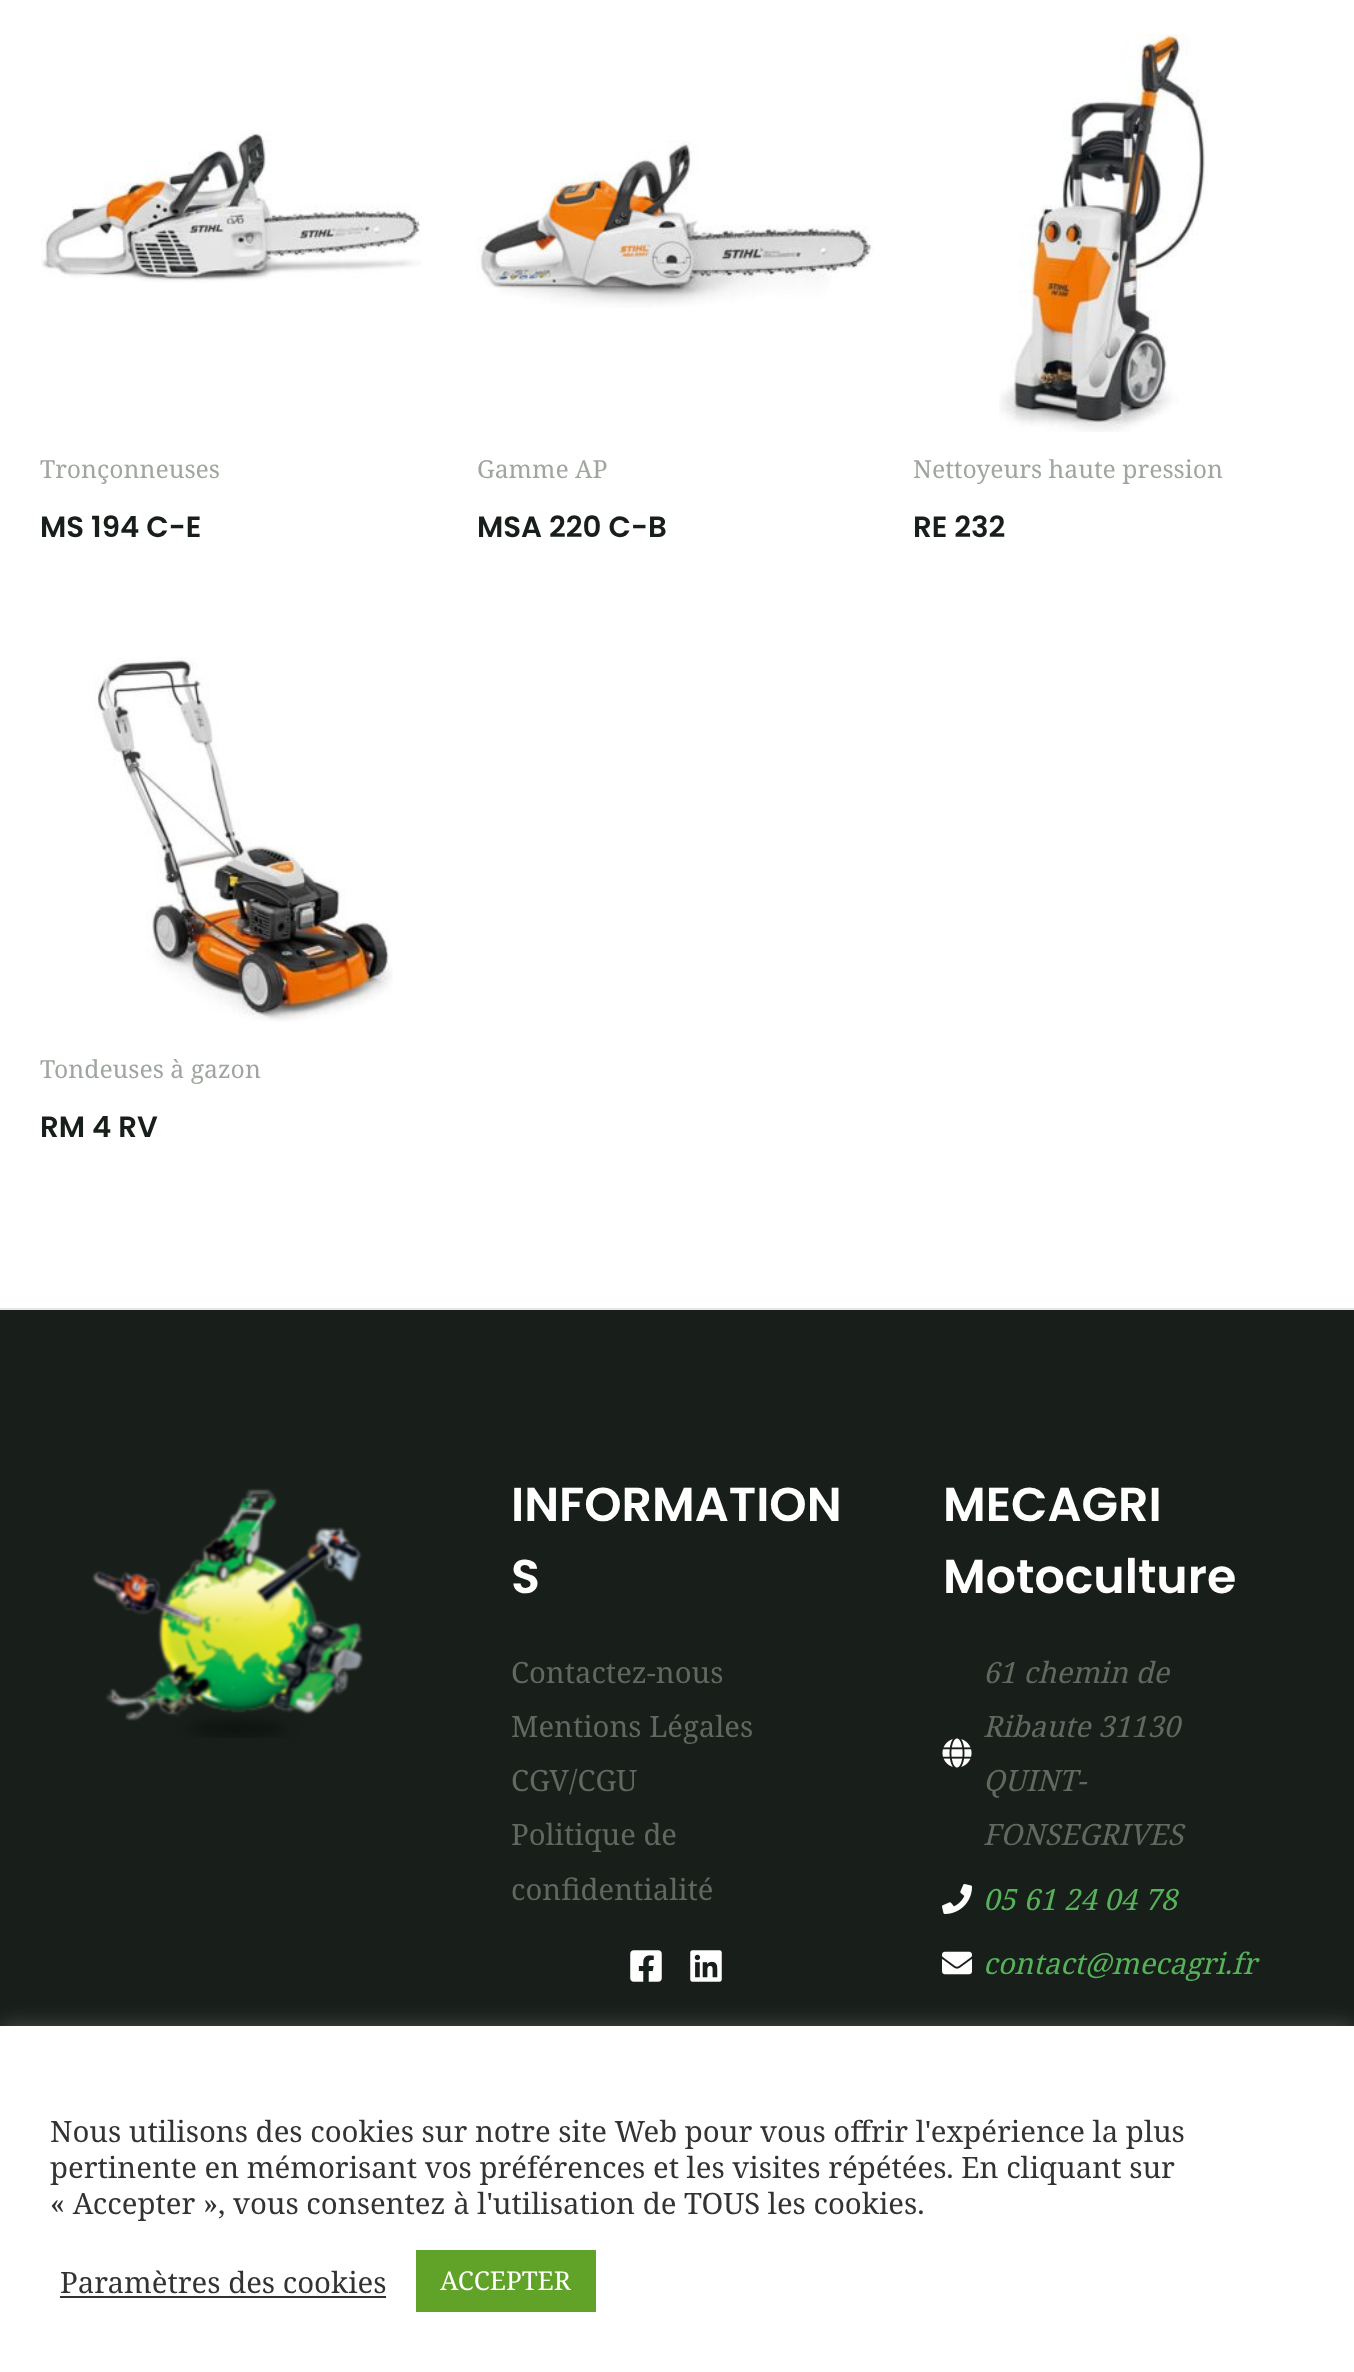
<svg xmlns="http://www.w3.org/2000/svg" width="1354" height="2372">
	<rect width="100%" height="100%" fill="#FFFFFF" />
	<image x="41" y="130" width="380" height="153" href="assets/img1.png" />
	<text x="40" y="478" font-family="Noto Serif" font-size="24.75" fill="#9FA59F">Tronçonneuses</text>
	<text x="40" y="537" font-family="Poppins" font-size="29.25" font-weight="600" fill="#181E19">MS 194 C-E</text>
	<image x="476" y="140" width="398" height="168" href="assets/img2.png" />
	<text x="477" y="478" font-family="Noto Serif" font-size="24.75" fill="#9FA59F">Gamme AP</text>
	<text x="477" y="537" font-family="Poppins" font-size="29.25" font-weight="600" fill="#181E19">MSA 220 C-B</text>
	<image x="999" y="34" width="209" height="398" href="assets/img3.png" />
	<text x="913" y="478" font-family="Noto Serif" font-size="24.75" fill="#9FA59F">Nettoyeurs haute pression</text>
	<text x="913" y="537" font-family="Poppins" font-size="29.25" font-weight="600" fill="#181E19">RE 232</text>
	<image x="93" y="657" width="300" height="365" href="assets/img4.png" />
	<text x="40" y="1078" font-family="Noto Serif" font-size="24.75" fill="#9FA59F">Tondeuses à gazon</text>
	<text x="40" y="1137" font-family="Poppins" font-size="29.25" font-weight="600" fill="#181E19">RM 4 RV</text>
	<rect x="0" y="1310" width="1354" height="716" fill="#181E19" />
	<rect x="0" y="1308" width="1354" height="2" fill="#E6E6E6" />
	<image x="92" y="1488" width="272" height="250" href="assets/img5.png" />
	<g font-family="Poppins" font-size="47.5" font-weight="600" fill="#FFFFFF">
		<text x="511" y="1521">INFORMATION</text>
		<text x="511" y="1593">S</text>
	</g>
	<g font-family="Noto Serif" font-size="29.25" fill="#5F695F">
		<text x="511" y="1683">Contactez-nous</text>
		<text x="511" y="1737">Mentions Légales</text>
		<text x="511" y="1791">CGV/CGU</text>
		<text x="511" y="1845">Politique de</text>
		<text x="511" y="1900">confidentialité</text>
	</g>
	<image x="630" y="1950" width="32" height="32" href="assets/img6.png" />
	<image x="690" y="1950" width="32" height="32" href="assets/img7.png" />
	<g font-family="Poppins" font-size="47.5" font-weight="600" fill="#FFFFFF">
		<text x="943" y="1521">MECAGRI</text>
		<text x="943" y="1593">Motoculture</text>
	</g>
	<image x="942" y="1738" width="30" height="30" href="assets/img8.png" />
	<g font-family="Noto Serif" font-size="29.25" font-style="italic" fill="#5F695F">
		<text x="983" y="1683">61 chemin de</text>
		<text x="983" y="1737">Ribaute 31130</text>
		<text x="983" y="1791">QUINT-</text>
		<text x="983" y="1845">FONSEGRIVES</text>
	</g>
	<image x="942" y="1884" width="30" height="30" href="assets/img9.png" />
	<text x="983" y="1910" font-family="Noto Serif" font-size="29.25" font-style="italic" fill="#56B259">05 61 24 04 78</text>
	<image x="942" y="1951" width="30" height="24" href="assets/img10.png" />
	<text x="983" y="1974" font-family="Noto Serif" font-size="29.25" font-style="italic" fill="#56B259">contact@mecagri.fr</text>
	<rect x="0" y="2024" width="1354" height="346" fill="#ACABAB" fill-opacity="0.3" filter="blur(10px)" />
	<rect x="0" y="2026" width="1354" height="346" fill="#FFFFFF" />
	<g font-family="Noto Serif" font-size="29.35" fill="#333333">
		<text x="50" y="2142">Nous utilisons des cookies sur notre site Web pour vous offrir l'expérience la plus</text>
		<text x="50" y="2178">pertinente en mémorisant vos préférences et les visites répétées. En cliquant sur</text>
		<text x="50" y="2214">« Accepter », vous consentez à l'utilisation de TOUS les cookies.</text>
		<text x="60" y="2293">Paramètres des cookies</text>
	</g>
	<rect x="60" y="2296" width="326" height="2" fill="#333333" />
	<rect x="416" y="2250" width="180" height="62" fill="#61A229" />
	<text x="440" y="2290" font-family="Noto Serif" font-size="26" fill="#FFFFFF">ACCEPTER</text>
</svg>
